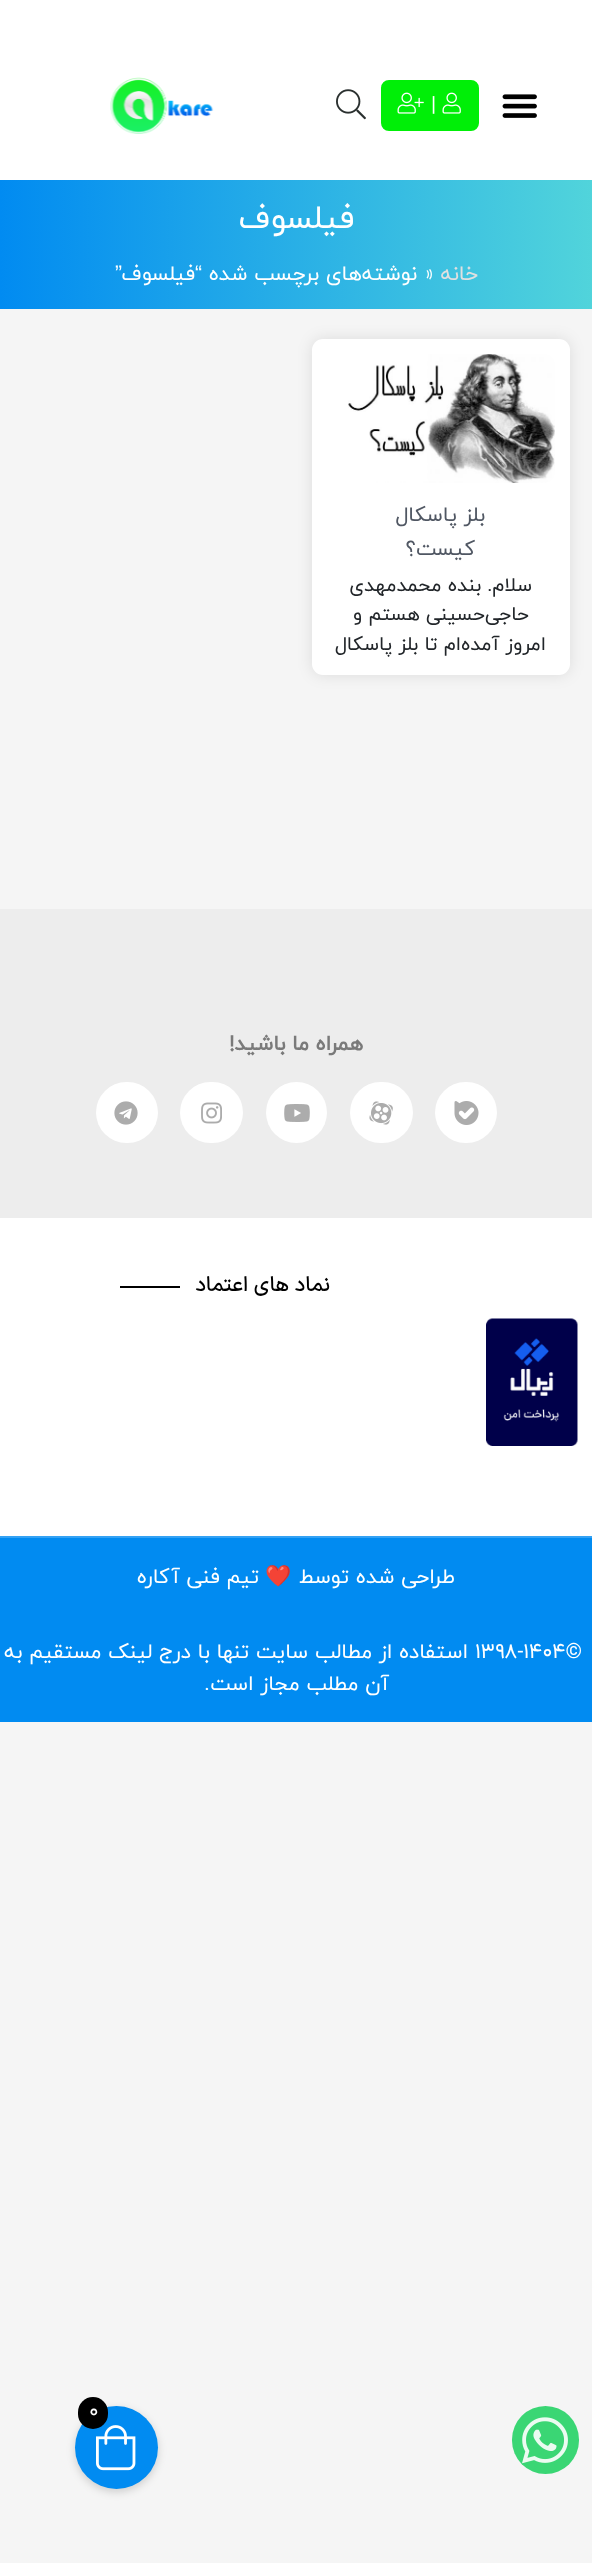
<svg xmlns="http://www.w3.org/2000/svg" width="592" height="2563">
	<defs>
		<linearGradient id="g1" gradientUnits="userSpaceOnUse" x1="0" y1="245" x2="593" y2="245"><stop offset="0" stop-color="#018BF1" /><stop offset="1" stop-color="#51D4DB" /></linearGradient>
	</defs>
	<rect width="100%" height="100%" fill="#F5F5F5" />
	<rect x="0" y="0" width="592" height="180" fill="#FFFFFF" />
	<image x="502" y="94" width="35" height="24" href="assets/img1.png" />
	<rect x="382" y="81" width="96" height="49" rx="7" fill="#00EF07" stroke="#00EF07" stroke-width="2" />
	<image x="442" y="92" width="19" height="22" href="assets/img2.png" />
	<text x="431" y="111" font-family="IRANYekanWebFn" font-size="21" fill="#FFFFFF">|</text>
	<image x="397" y="92" width="27" height="22" href="assets/img3.png" />
	<image x="336" y="89" width="30" height="31" href="assets/img4.png" />
	<image x="110" y="77" width="104" height="57" href="assets/img5.png" />
	<rect x="0" y="180" width="592" height="129" fill="url(#g1)" />
	<text x="354" y="228" font-family="IRANYekanWebFn" font-size="33" direction="rtl" fill="#FFFFFF">فیلسوف</text>
	<text x="478" y="280" font-family="IRANYekanWebFn" font-size="21" direction="rtl" fill="#E0E0E0">خانه</text>
	<text x="424" y="280" font-family="IRANYekanWebFn" font-size="21" fill="#FFFFFF">»</text>
	<text x="417" y="280" font-family="IRANYekanWebFn" font-size="21" direction="rtl" fill="#FFFFFF">نوشته‌های برچسب شده</text>
	<text x="202" y="280" font-family="Liberation Sans" font-size="21" direction="rtl" fill="#FFFFFF">“</text>
	<text x="195" y="280" font-family="IRANYekanWebFn" font-size="21" direction="rtl" fill="#FFFFFF">فیلسوف</text>
	<text x="122" y="280" font-family="Liberation Sans" font-size="21" direction="rtl" fill="#FFFFFF">”</text>
	<rect x="312" y="339" width="258" height="336" rx="11" fill="#000000" fill-opacity="0.1" filter="blur(7.5px)" />
	<rect x="312" y="339" width="258" height="336" rx="11" fill="#FFFFFF" />
	<image x="348" y="354" width="207" height="129" href="assets/img6.png" />
	<g font-family="IRANYekanWebFn" font-size="21" direction="rtl" fill="#505763">
		<text x="485" y="521">بلز پاسکال</text>
		<text x="475" y="555">کیست؟</text>
	</g>
	<g font-family="IRANYekanWebFn" font-size="19.5" direction="rtl" fill="#212529">
		<text x="532" y="591">سلام. بنده محمدمهدی</text>
		<text x="529" y="620">حاجی‌حسینی هستم و</text>
		<text x="546" y="650">امروز آمده‌ام تا بلز پاسکال</text>
	</g>
	<rect x="0" y="909" width="592" height="309" fill="#EDEDED" />
	<text x="363" y="1050" font-family="IRANYekanWebFn" font-size="21" font-weight="700" direction="rtl" fill="#7A7A7A">همراه ما باشید!</text>
	<rect x="435" y="1082" width="62" height="61" rx="30.5" fill="#FFFFFF" />
	<image x="454" y="1101" width="25" height="24" href="assets/img7.png" />
	<rect x="350" y="1082" width="63" height="61" rx="30.5" fill="#FFFFFF" />
	<image x="369" y="1101" width="24" height="24" href="assets/img8.png" />
	<circle cx="296.5" cy="1112.5" r="30.5" fill="#FFFFFF" />
	<image x="284" y="1104" width="26" height="18" href="assets/img9.png" />
	<rect x="180" y="1082" width="63" height="61" rx="30.5" fill="#FFFFFF" />
	<image x="201" y="1102" width="21" height="22" href="assets/img10.png" />
	<rect x="96" y="1082" width="62" height="61" rx="30.5" fill="#FFFFFF" />
	<image x="114" y="1101" width="24" height="24" href="assets/img11.png" />
	<rect x="0" y="1218" width="592" height="318" fill="#FFFFFF" />
	<text x="330" y="1291" font-family="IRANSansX" font-size="21" font-weight="500" direction="rtl" fill="#000000">نماد های اعتماد</text>
	<rect x="120" y="1286" width="60" height="2" fill="#000000" />
	<image x="486" y="1318" width="92" height="128" href="assets/img12.png" />
	<rect x="0" y="1538" width="592" height="184" fill="#018BF1" />
	<rect x="0" y="1536" width="592" height="2" fill="#34A2F4" />
	<text x="455" y="1583" font-family="IRANYekanWebFn" font-size="21" direction="rtl" fill="#FFFFFF">طراحی شده توسط</text>
	<text x="292" y="1583" font-family="Noto Color Emoji" font-size="21" direction="rtl" fill="#FFFFFF">❤️</text>
	<text x="259" y="1583" font-family="IRANYekanWebFn" font-size="21" direction="rtl" fill="#FFFFFF">تیم فنی آکاره</text>
	<text x="475" y="1658" font-family="IRANYekanWebFn" font-size="21" fill="#FFFFFF">۱۳۹۸-۱۴۰۴©</text>
	<g font-family="IRANYekanWebFn" font-size="21" direction="rtl" fill="#FFFFFF">
		<text x="468" y="1658">استفاده از مطالب سایت تنها با درج لینک مستقیم به</text>
		<text x="389" y="1690">آن مطلب مجاز است.‌</text>
	</g>
	<rect x="512" y="2406" width="67" height="68" rx="33.5" fill="#3AD674" />
	<image x="522" y="2417" width="46" height="47" href="assets/img13.png" />
	<rect x="75" y="2409" width="83" height="83" rx="41.5" fill="#000000" fill-opacity="0.16" filter="blur(4px)" />
	<circle cx="116.5" cy="2447.5" r="41.5" fill="#018BF1" />
	<image x="96" y="2425" width="40" height="46" href="assets/img14.png" />
	<rect x="78" y="2397" width="30" height="32" rx="15" fill="#000000" />
	<text x="89" y="2417" font-family="IRANYekanWebFn" font-size="19.5" fill="#FFFFFF">0</text>
</svg>
